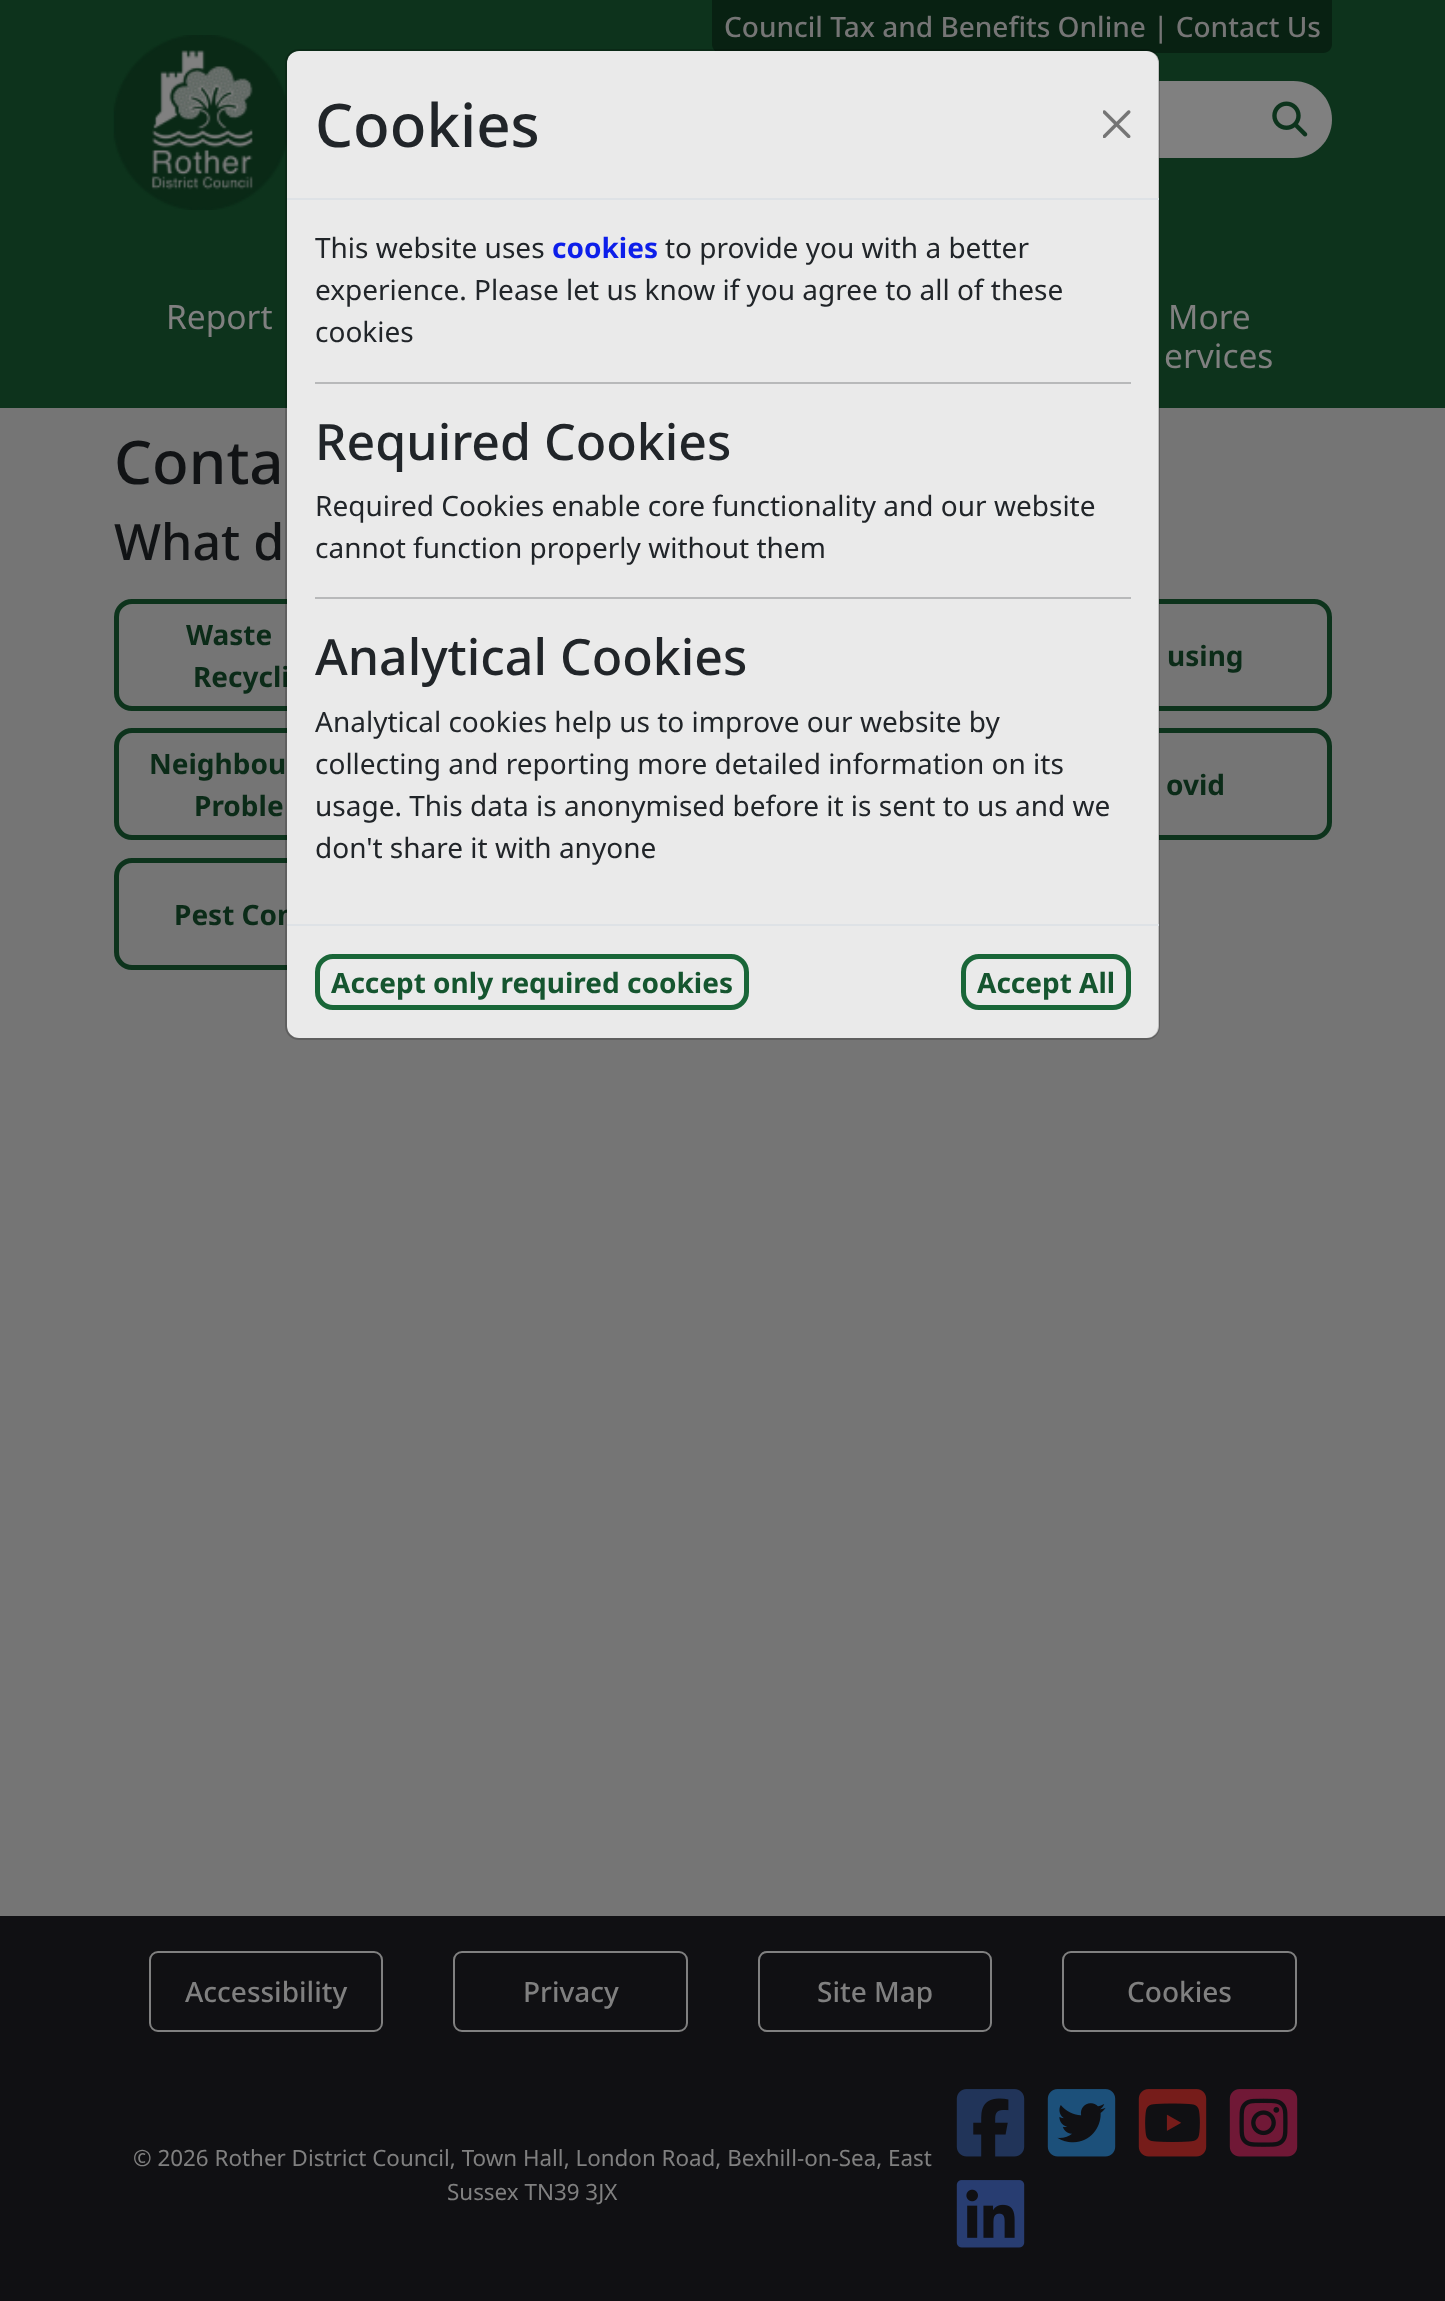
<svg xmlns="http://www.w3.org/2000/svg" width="1445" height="2301">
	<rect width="100%" height="100%" fill="#757575" />
	<rect x="0" y="0" width="1445" height="408" fill="#0D331C" />
	<path d="M712 0H1332V44C1332 49 1328 53 1323 53H721C716 53 712 49 712 44Z" fill="#082112" />
	<g font-family="Noto Sans" font-size="28" font-weight="500" fill="#757575">
		<text x="724" y="37">Council Tax and Benefits Online</text>
		<text x="1153" y="37">| Contact Us</text>
	</g>
	<rect x="1159" y="81" width="96" height="77" fill="#808080" />
	<path d="M1255 81H1293.5C1315 81 1332 98 1332 119.5C1332 141 1315 158 1293.5 158H1255Z" fill="#808080" />
	<image x="1272" y="101" width="36" height="36" href="assets/img1.png" />
	<image x="113" y="35" width="174" height="175" href="assets/img2.png" />
	<g font-family="Noto Sans" font-size="33.5" fill="#808080">
		<text x="166" y="329">Report</text>
		<text x="1168" y="329">More</text>
		<text x="1164" y="368">ervices</text>
	</g>
	<rect x="116.5" y="601.5" width="287" height="107" rx="15.5" fill="none" stroke="#0D331C" stroke-width="5" />
	<text x="193" y="687" font-family="Noto Sans" font-size="28" font-weight="700" fill="#0B2B18">Recycli</text>
	<rect x="1043.5" y="601.5" width="286" height="107" rx="15.5" fill="none" stroke="#0D331C" stroke-width="5" />
	<rect x="116.5" y="730.5" width="287" height="107" rx="15.5" fill="none" stroke="#0D331C" stroke-width="5" />
	<rect x="1043.5" y="730.5" width="286" height="107" rx="15.5" fill="none" stroke="#0D331C" stroke-width="5" />
	<rect x="116.5" y="860.5" width="287" height="107" rx="15.5" fill="none" stroke="#0D331C" stroke-width="5" />
	<text x="174" y="925" font-family="Noto Sans" font-size="28" font-weight="700" fill="#0B2B18">Pest Con</text>
	<rect x="287" y="51" width="872" height="987" rx="12" fill="#EAEAEA" />
	<rect x="286" y="50" width="873" height="989" rx="13" fill="none" stroke="#000000" stroke-opacity="0.18" stroke-width="2" />
	<rect x="287" y="198" width="872" height="2" fill="#DEE2E6" />
	<text x="315" y="147" font-family="'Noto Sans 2'" font-size="60" font-weight="500" fill="#212529">Cookies</text>
	<image x="1103" y="110" width="28" height="28" href="assets/img3.png" />
	<text x="315" y="258" font-family="Noto Sans" font-size="28" fill="#212529">This website uses</text>
	<text x="552" y="258" font-family="Noto Sans" font-size="28" font-weight="700" fill="#0D1FEA">cookies</text>
	<g font-family="Noto Sans" font-size="28" fill="#212529">
		<text x="665" y="258">to provide you with a better</text>
		<text x="315" y="300">experience. Please let us know if you agree to all of these</text>
		<text x="315" y="342">cookies</text>
	</g>
	<rect x="315" y="382" width="816" height="2" fill="#B8B9BA" />
	<text x="315" y="460" font-family="'Noto Sans 2'" font-size="50" font-weight="500" fill="#212529">Required Cookies</text>
	<g font-family="Noto Sans" font-size="28" fill="#212529">
		<text x="315" y="516">Required Cookies enable core functionality and our website</text>
		<text x="315" y="558">cannot function properly without them</text>
	</g>
	<rect x="315" y="597" width="816" height="2" fill="#B8B9BA" />
	<text x="315" y="675" font-family="'Noto Sans 2'" font-size="50" font-weight="500" fill="#212529">Analytical Cookies</text>
	<g font-family="Noto Sans" font-size="28" fill="#212529">
		<text x="315" y="732">Analytical cookies help us to improve our website by</text>
		<text x="315" y="774">collecting and reporting more detailed information on its</text>
		<text x="315" y="816">usage. This data is anonymised before it is sent to us and we</text>
		<text x="315" y="858">don't share it with anyone</text>
	</g>
	<rect x="287" y="924" width="872" height="2" fill="#DEE2E6" />
	<rect x="317.5" y="956.5" width="429" height="51" rx="15.5" fill="none" stroke="#196638" stroke-width="5" />
	<text x="331" y="993" font-family="Noto Sans" font-size="28" font-weight="700" fill="#15552F">Accept only required cookies</text>
	<rect x="963.5" y="956.5" width="165" height="51" rx="15.5" fill="none" stroke="#196638" stroke-width="5" />
	<text x="977" y="993" font-family="Noto Sans" font-size="28" font-weight="700" fill="#15552F">Accept All</text>
	<text x="114" y="484" font-family="'Noto Sans 2'" font-size="60" font-weight="500" fill="#111315">Conta</text>
	<text x="114" y="560" font-family="'Noto Sans 2'" font-size="50" font-weight="500" fill="#111315">What d</text>
	<g font-family="Noto Sans" font-size="28" font-weight="700" fill="#0B2B18">
		<text x="186" y="645">Waste</text>
		<text x="1167" y="666">using</text>
		<text x="149" y="774">Neighbou</text>
		<text x="194" y="816">Proble</text>
		<text x="1166" y="795">ovid</text>
	</g>
	<rect x="0" y="1916" width="1445" height="385" fill="#101013" />
	<rect x="150" y="1952" width="232" height="79" rx="8" fill="none" stroke="#808080" stroke-width="2" />
	<text x="185" y="2002" font-family="Noto Sans" font-size="28" font-weight="500" fill="#808080">Accessibility</text>
	<rect x="454" y="1952" width="233" height="79" rx="8" fill="none" stroke="#808080" stroke-width="2" />
	<text x="523" y="2002" font-family="Noto Sans" font-size="28" font-weight="500" fill="#808080">Privacy</text>
	<rect x="759" y="1952" width="232" height="79" rx="8" fill="none" stroke="#808080" stroke-width="2" />
	<text x="817" y="2002" font-family="Noto Sans" font-size="28" font-weight="500" fill="#808080">Site Map</text>
	<rect x="1063" y="1952" width="233" height="79" rx="8" fill="none" stroke="#808080" stroke-width="2" />
	<text x="1127" y="2002" font-family="Noto Sans" font-size="28" font-weight="500" fill="#808080">Cookies</text>
	<g font-family="Noto Sans" font-size="22.4" fill="#808080">
		<text x="133" y="2166">© 2026 Rother District Council, Town Hall, London Road, Bexhill-on-Sea, East</text>
		<text x="447" y="2200">Sussex TN39 3JX</text>
	</g>
	<image x="956" y="2089" width="69" height="68" href="assets/img4.png" />
	<image x="1047" y="2089" width="69" height="68" href="assets/img5.png" />
	<image x="1138" y="2089" width="69" height="68" href="assets/img6.png" />
	<image x="1229" y="2089" width="69" height="68" href="assets/img7.png" />
	<image x="956" y="2180" width="69" height="68" href="assets/img8.png" />
</svg>
